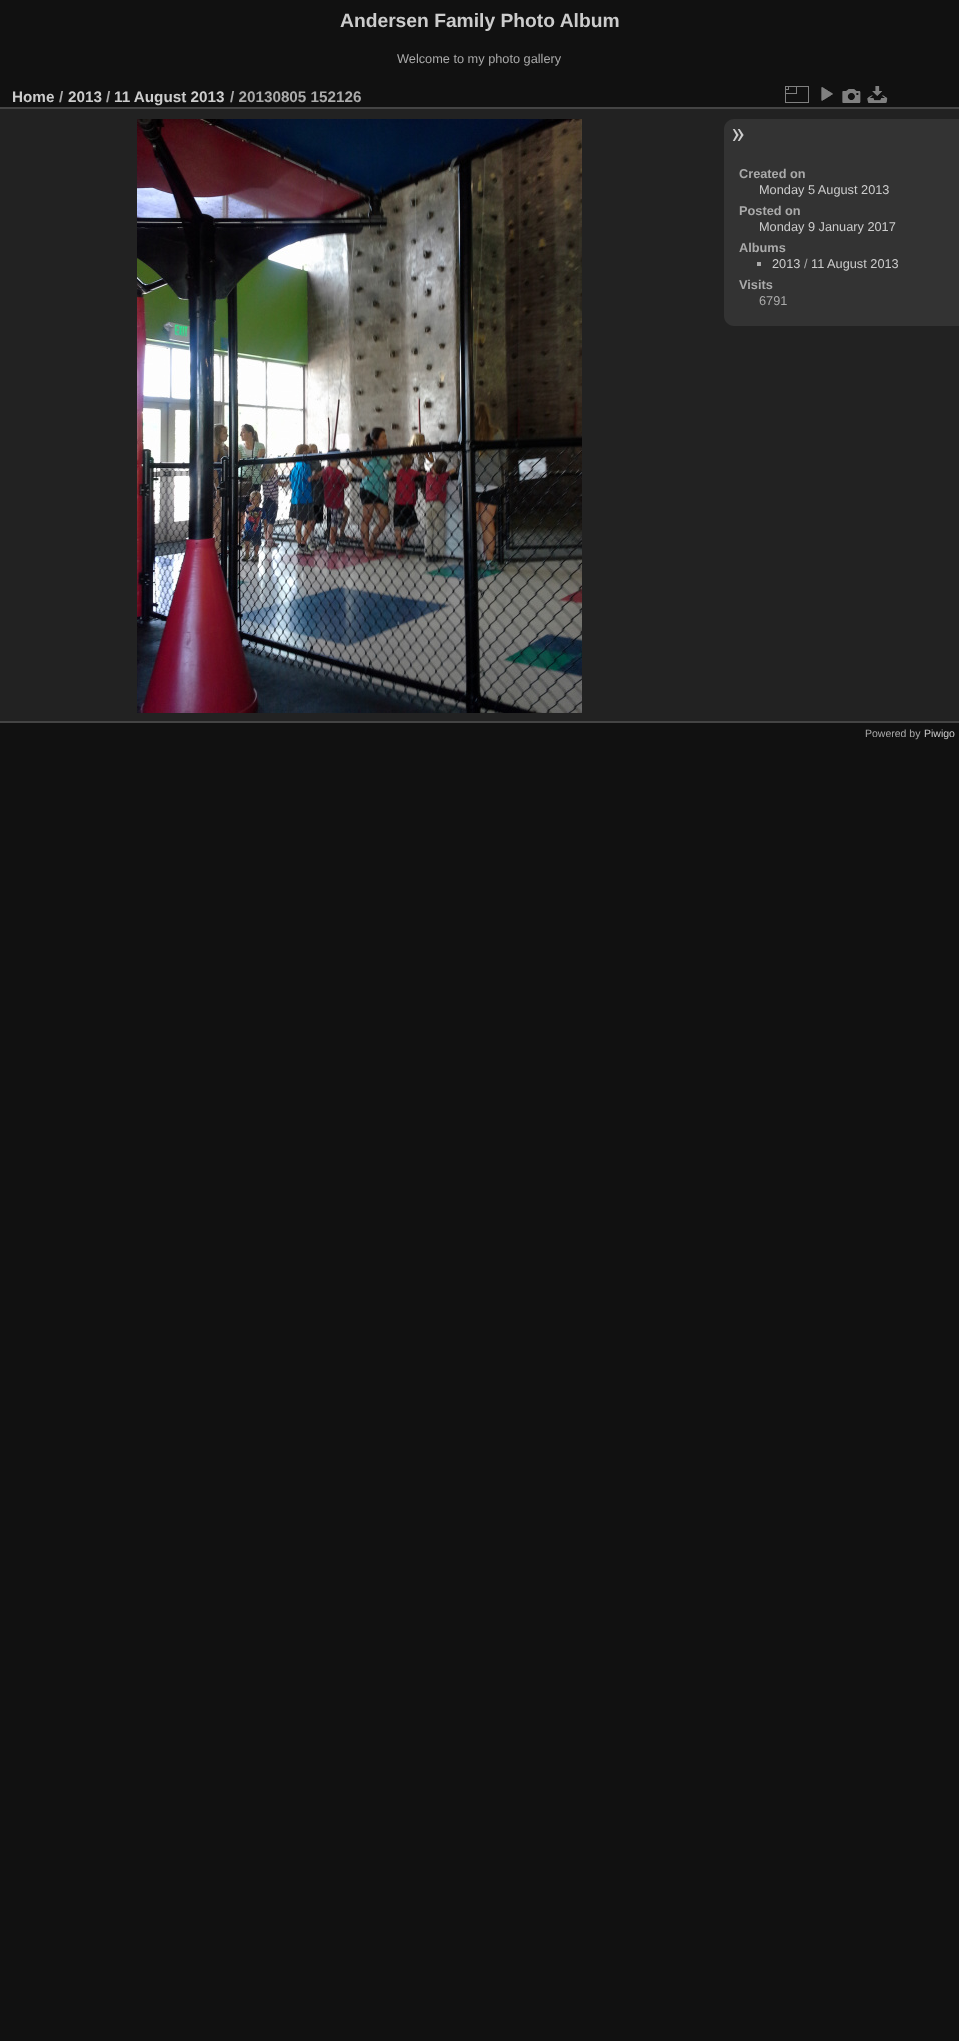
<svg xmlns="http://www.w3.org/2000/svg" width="959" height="2041">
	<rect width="100%" height="100%" fill="#111111" />
	<text x="340" y="27" font-family="Liberation Sans" font-size="19.25" font-weight="700" fill="#CCCCCC">Andersen Family Photo Album</text>
	<text x="397" y="63" font-family="Liberation Sans" font-size="12.75" fill="#AAAAAA">Welcome to my photo gallery</text>
	<rect x="0" y="109" width="959" height="612" fill="#222222" />
	<rect x="0" y="721" width="959" height="2" fill="#444444" />
	<rect x="0" y="107" width="959" height="2" fill="#444444" />
	<text x="12" y="102" font-family="Liberation Sans" font-size="15.25" font-weight="700" fill="#CCCCCC">Home</text>
	<text x="59" y="102" font-family="Liberation Sans" font-size="15.25" font-weight="700" fill="#AAAAAA">/</text>
	<text x="68" y="102" font-family="Liberation Sans" font-size="15.25" font-weight="700" fill="#CCCCCC">2013</text>
	<text x="106" y="102" font-family="Liberation Sans" font-size="15.25" font-weight="700" fill="#AAAAAA">/</text>
	<text x="114" y="102" font-family="Liberation Sans" font-size="15.25" font-weight="700" fill="#CCCCCC">11 August 2013</text>
	<text x="230" y="102" font-family="Liberation Sans" font-size="15.25" font-weight="700" fill="#AAAAAA">/ 20130805 152126</text>
	<image x="785" y="86" width="24" height="17" href="assets/img1.png" />
	<image x="821" y="87" width="12" height="14" href="assets/img2.png" />
	<image x="842" y="89" width="19" height="14" href="assets/img3.png" />
	<image x="867" y="86" width="21" height="17" href="assets/img4.png" />
	<image x="137" y="119" width="445" height="594" href="assets/img5.png" />
	<path d="M734 119H959V326H734C728.5 326 724 321.5 724 316V129C724 123.5 728.5 119 734 119Z" fill="#333333" />
	<image x="732" y="129" width="12" height="12" href="assets/img6.png" />
	<text x="739" y="178" font-family="Liberation Sans" font-size="12.75" font-weight="700" fill="#AAAAAA">Created on</text>
	<text x="759" y="194" font-family="Liberation Sans" font-size="12.75" fill="#CCCCCC">Monday 5 August 2013</text>
	<text x="739" y="215" font-family="Liberation Sans" font-size="12.75" font-weight="700" fill="#AAAAAA">Posted on</text>
	<text x="759" y="231" font-family="Liberation Sans" font-size="12.75" fill="#CCCCCC">Monday 9 January 2017</text>
	<text x="739" y="252" font-family="Liberation Sans" font-size="12.75" font-weight="700" fill="#AAAAAA">Albums</text>
	<rect x="757" y="262" width="4" height="4" fill="#AAAAAA" />
	<text x="772" y="268" font-family="Liberation Sans" font-size="12.75" fill="#CCCCCC">2013</text>
	<text x="804" y="268" font-family="Liberation Sans" font-size="12.75" fill="#AAAAAA">/</text>
	<text x="811" y="268" font-family="Liberation Sans" font-size="12.75" fill="#CCCCCC">11 August 2013</text>
	<text x="739" y="289" font-family="Liberation Sans" font-size="12.75" font-weight="700" fill="#AAAAAA">Visits</text>
	<text x="759" y="305" font-family="Liberation Sans" font-size="12.75" fill="#AAAAAA">6791</text>
	<text x="865" y="737" font-family="Liberation Sans" font-size="10.5" fill="#AAAAAA">Powered by</text>
	<text x="924" y="737" font-family="Liberation Sans" font-size="10.5" fill="#CCCCCC">Piwigo</text>
</svg>
